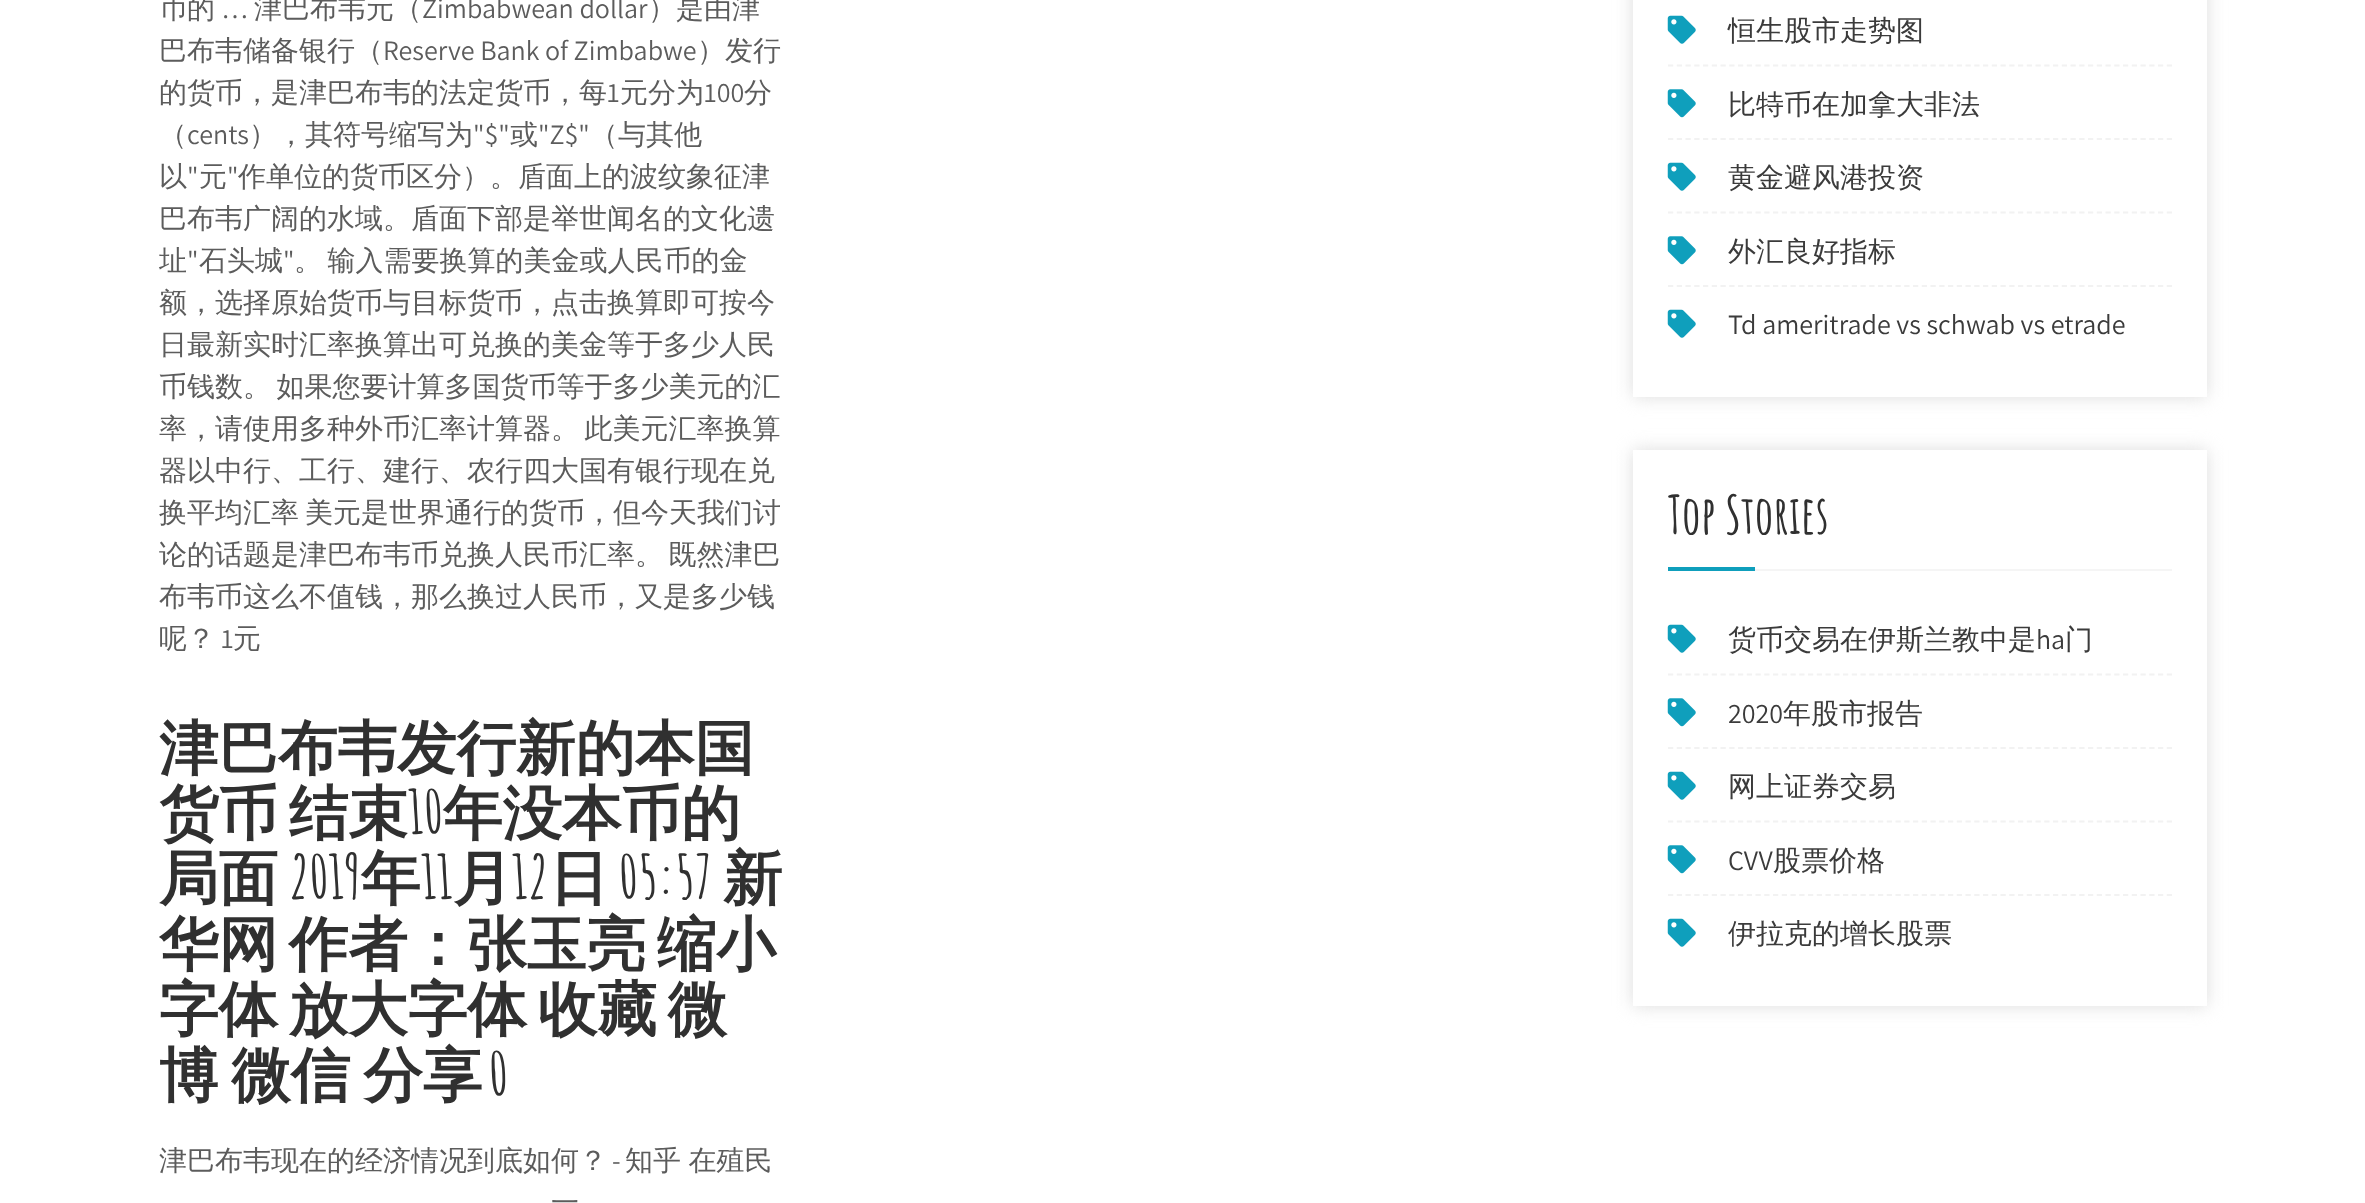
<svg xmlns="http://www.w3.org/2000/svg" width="2365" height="1203">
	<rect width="100%" height="100%" fill="#FFFFFF" />
	<text x="159" y="18" font-family="WenQuanYi Zen Hei" font-size="28" font-weight="500" fill="#5C5C5C">币的</text>
	<text x="221" y="18" font-family="Assistant" font-size="28" fill="#5C5C5C">…</text>
	<text x="254" y="18" font-family="WenQuanYi Zen Hei" font-size="28" font-weight="500" fill="#5C5C5C">津巴布韦元（</text>
	<text x="422" y="18" font-family="Assistant" font-size="28" fill="#5C5C5C">Zimbabwean dollar</text>
	<g font-family="WenQuanYi Zen Hei" font-size="28" font-weight="500" fill="#5C5C5C">
		<text x="648" y="18">）是由津</text>
		<text x="159" y="60">巴布韦储备银行（</text>
	</g>
	<text x="383" y="60" font-family="Assistant" font-size="28" fill="#5C5C5C">Reserve Bank of Zimbabwe</text>
	<g font-family="WenQuanYi Zen Hei" font-size="28" font-weight="500" fill="#5C5C5C">
		<text x="697" y="60">）发行</text>
		<text x="159" y="102">的货币，是津巴布韦的法定货币，每</text>
	</g>
	<text x="607" y="102" font-family="Assistant" font-size="28" fill="#5C5C5C">1</text>
	<text x="620" y="102" font-family="WenQuanYi Zen Hei" font-size="28" font-weight="500" fill="#5C5C5C">元分为</text>
	<text x="704" y="102" font-family="Assistant" font-size="28" fill="#5C5C5C">100</text>
	<g font-family="WenQuanYi Zen Hei" font-size="28" font-weight="500" fill="#5C5C5C">
		<text x="744" y="102">分</text>
		<text x="159" y="144">（</text>
	</g>
	<text x="187" y="144" font-family="Assistant" font-size="28" fill="#5C5C5C">cents</text>
	<text x="249" y="144" font-family="WenQuanYi Zen Hei" font-size="28" font-weight="500" fill="#5C5C5C">），其符号缩写为</text>
	<text x="473" y="144" font-family="Assistant" font-size="28" fill="#5C5C5C">"$"</text>
	<text x="510" y="144" font-family="WenQuanYi Zen Hei" font-size="28" font-weight="500" fill="#5C5C5C">或</text>
	<text x="538" y="144" font-family="Assistant" font-size="28" fill="#5C5C5C">"Z$"</text>
	<g font-family="WenQuanYi Zen Hei" font-size="28" font-weight="500" fill="#5C5C5C">
		<text x="590" y="144">（与其他</text>
		<text x="159" y="186">以</text>
	</g>
	<text x="187" y="186" font-family="Assistant" font-size="28" fill="#5C5C5C">"</text>
	<text x="199" y="186" font-family="WenQuanYi Zen Hei" font-size="28" font-weight="500" fill="#5C5C5C">元</text>
	<text x="227" y="186" font-family="Assistant" font-size="28" fill="#5C5C5C">"</text>
	<g font-family="WenQuanYi Zen Hei" font-size="28" font-weight="500" fill="#5C5C5C">
		<text x="238" y="186">作单位的货币区分）。盾面上的波纹象征津</text>
		<text x="159" y="228">巴布韦广阔的水域。盾面下部是举世闻名的文化遗</text>
		<text x="159" y="270">址</text>
	</g>
	<text x="187" y="270" font-family="Assistant" font-size="28" fill="#5C5C5C">"</text>
	<text x="199" y="270" font-family="WenQuanYi Zen Hei" font-size="28" font-weight="500" fill="#5C5C5C">石头城</text>
	<text x="283" y="270" font-family="Assistant" font-size="28" fill="#5C5C5C">"</text>
	<g font-family="WenQuanYi Zen Hei" font-size="28" font-weight="500" fill="#5C5C5C">
		<text x="294" y="270" word-spacing="-3">。 输入需要换算的美金或人民币的金</text>
		<text x="159" y="312">额，选择原始货币与目标货币，点击换算即可按今</text>
		<text x="159" y="354">日最新实时汇率换算出可兑换的美金等于多少人民</text>
		<text x="159" y="396" word-spacing="-3">币钱数。 如果您要计算多国货币等于多少美元的汇</text>
		<text x="159" y="438" word-spacing="-3">率，请使用多种外币汇率计算器。 此美元汇率换算</text>
		<text x="159" y="480">器以中行、工行、建行、农行四大国有银行现在兑</text>
		<text x="159" y="522">换平均汇率</text>
		<text x="305" y="522">美元是世界通行的货币，但今天我们讨</text>
		<text x="159" y="564" word-spacing="-3">论的话题是津巴布韦币兑换人民币汇率。 既然津巴</text>
		<text x="159" y="606">布韦币这么不值钱，那么换过人民币，又是多少钱</text>
		<text x="159" y="648">呢？</text>
	</g>
	<text x="221" y="648" font-family="Assistant" font-size="28" fill="#5C5C5C">1</text>
	<text x="233" y="648" font-family="WenQuanYi Zen Hei" font-size="28" font-weight="500" fill="#5C5C5C">元</text>
	<g font-family="WenQuanYi Zen Hei" font-size="59.5" font-weight="700" fill="#303030">
		<text x="159" y="769">津巴布韦发行新的本国</text>
		<text x="159" y="834" word-spacing="-7">货币 结束</text>
	</g>
	<text x="408" y="834" font-family="Amatic SC" font-size="59.5" font-weight="700" fill="#303030">10</text>
	<g font-family="WenQuanYi Zen Hei" font-size="59.5" font-weight="700" fill="#303030">
		<text x="443" y="834">年没本币的</text>
		<text x="159" y="899">局面</text>
	</g>
	<text x="289" y="899" font-family="Amatic SC" font-size="59.5" font-weight="700" fill="#303030">2019</text>
	<text x="361" y="899" font-family="WenQuanYi Zen Hei" font-size="59.5" font-weight="700" fill="#303030">年</text>
	<text x="421" y="899" font-family="Amatic SC" font-size="59.5" font-weight="700" fill="#303030">11</text>
	<text x="453" y="899" font-family="WenQuanYi Zen Hei" font-size="59.5" font-weight="700" fill="#303030">月</text>
	<text x="512" y="899" font-family="Amatic SC" font-size="59.5" font-weight="700" fill="#303030">12</text>
	<text x="549" y="899" font-family="WenQuanYi Zen Hei" font-size="59.5" font-weight="700" fill="#303030">日</text>
	<text x="619" y="899" font-family="Amatic SC" font-size="59.5" font-weight="700" fill="#303030">05:57</text>
	<g font-family="WenQuanYi Zen Hei" font-size="59.5" font-weight="700" fill="#303030">
		<text x="723" y="899">新</text>
		<text x="159" y="965" word-spacing="-7">华网 作者：张玉亮 缩小</text>
		<text x="159" y="1030" word-spacing="-7">字体 放大字体 收藏 微</text>
		<text x="159" y="1096" word-spacing="-5">博 微信 分享</text>
	</g>
	<text x="489" y="1096" font-family="Amatic SC" font-size="59.5" font-weight="700" fill="#303030">0</text>
	<text x="159" y="1170" font-family="WenQuanYi Zen Hei" font-size="28" font-weight="500" fill="#5C5C5C">津巴布韦现在的经济情况到底如何？</text>
	<text x="612" y="1170" font-family="Assistant" font-size="28" fill="#5C5C5C">-</text>
	<g font-family="WenQuanYi Zen Hei" font-size="28" font-weight="500" fill="#5C5C5C">
		<text x="625" y="1170" word-spacing="-1">知乎 在殖民</text>
		<text x="551" y="1212">一</text>
	</g>
	<rect x="1633" y="-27" width="574" height="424" fill="#DDDDDD" filter="blur(9px)" />
	<rect x="1633" y="0" width="574" height="397" fill="#FFFFFF" />
	<path d="M1668 65.5H2172" fill="none" stroke="#F2F2F2" stroke-width="1.8" stroke-dasharray="5.25 3.5" />
	<image x="1667" y="15" width="29" height="29" href="assets/img1.png" />
	<text x="1728" y="40" font-family="WenQuanYi Zen Hei" font-size="28" font-weight="500" fill="#3B3B3B">恒生股市走势图</text>
	<path d="M1668 139H2172" fill="none" stroke="#F2F2F2" stroke-width="1.8" stroke-dasharray="5.25 3.5" />
	<image x="1667" y="89" width="29" height="29" href="assets/img2.png" />
	<text x="1728" y="114" font-family="WenQuanYi Zen Hei" font-size="28" font-weight="500" fill="#3B3B3B">比特币在加拿大非法</text>
	<path d="M1668 212.5H2172" fill="none" stroke="#F2F2F2" stroke-width="1.8" stroke-dasharray="5.25 3.5" />
	<image x="1667" y="162" width="29" height="29" href="assets/img1.png" />
	<text x="1728" y="187" font-family="WenQuanYi Zen Hei" font-size="28" font-weight="500" fill="#3B3B3B">黄金避风港投资</text>
	<path d="M1668 286H2172" fill="none" stroke="#F2F2F2" stroke-width="1.8" stroke-dasharray="5.25 3.5" />
	<image x="1667" y="236" width="29" height="29" href="assets/img2.png" />
	<text x="1728" y="261" font-family="WenQuanYi Zen Hei" font-size="28" font-weight="500" fill="#3B3B3B">外汇良好指标</text>
	<image x="1667" y="309" width="29" height="29" href="assets/img1.png" />
	<text x="1728" y="334" font-family="Assistant" font-size="28" fill="#3B3B3B">Td ameritrade vs schwab vs etrade</text>
	<rect x="1633" y="450" width="574" height="556" fill="#DDDDDD" filter="blur(9px)" />
	<rect x="1633" y="450" width="574" height="556" fill="#FFFFFF" />
	<rect x="1755" y="569" width="417" height="2" fill="#F5F5F5" />
	<text x="1668" y="534" font-family="Amatic SC" font-size="52.5" font-weight="700" fill="#303030">Top Stories</text>
	<rect x="1668" y="567" width="87" height="4" fill="#0F9FBC" />
	<path d="M1668 674.5H2172" fill="none" stroke="#F2F2F2" stroke-width="1.8" stroke-dasharray="5.25 3.5" />
	<image x="1667" y="624" width="29" height="29" href="assets/img1.png" />
	<text x="1728" y="649" font-family="WenQuanYi Zen Hei" font-size="28" font-weight="500" fill="#3B3B3B">货币交易在伊斯兰教中是</text>
	<text x="2036" y="649" font-family="Assistant" font-size="28" fill="#3B3B3B">ha</text>
	<text x="2065" y="649" font-family="WenQuanYi Zen Hei" font-size="28" font-weight="500" fill="#3B3B3B">门</text>
	<path d="M1668 748H2172" fill="none" stroke="#F2F2F2" stroke-width="1.8" stroke-dasharray="5.25 3.5" />
	<image x="1667" y="698" width="29" height="29" href="assets/img2.png" />
	<text x="1728" y="723" font-family="Assistant" font-size="28" fill="#3B3B3B">2020</text>
	<text x="1783" y="723" font-family="WenQuanYi Zen Hei" font-size="28" font-weight="500" fill="#3B3B3B">年股市报告</text>
	<path d="M1668 821.5H2172" fill="none" stroke="#F2F2F2" stroke-width="1.8" stroke-dasharray="5.25 3.5" />
	<image x="1667" y="771" width="29" height="29" href="assets/img1.png" />
	<text x="1728" y="796" font-family="WenQuanYi Zen Hei" font-size="28" font-weight="500" fill="#3B3B3B">网上证券交易</text>
	<path d="M1668 895H2172" fill="none" stroke="#F2F2F2" stroke-width="1.8" stroke-dasharray="5.25 3.5" />
	<image x="1667" y="845" width="29" height="29" href="assets/img2.png" />
	<text x="1728" y="870" font-family="Assistant" font-size="28" fill="#3B3B3B">CVV</text>
	<text x="1773" y="870" font-family="WenQuanYi Zen Hei" font-size="28" font-weight="500" fill="#3B3B3B">股票价格</text>
	<image x="1667" y="918" width="29" height="29" href="assets/img1.png" />
	<text x="1728" y="943" font-family="WenQuanYi Zen Hei" font-size="28" font-weight="500" fill="#3B3B3B">伊拉克的增长股票</text>
</svg>
